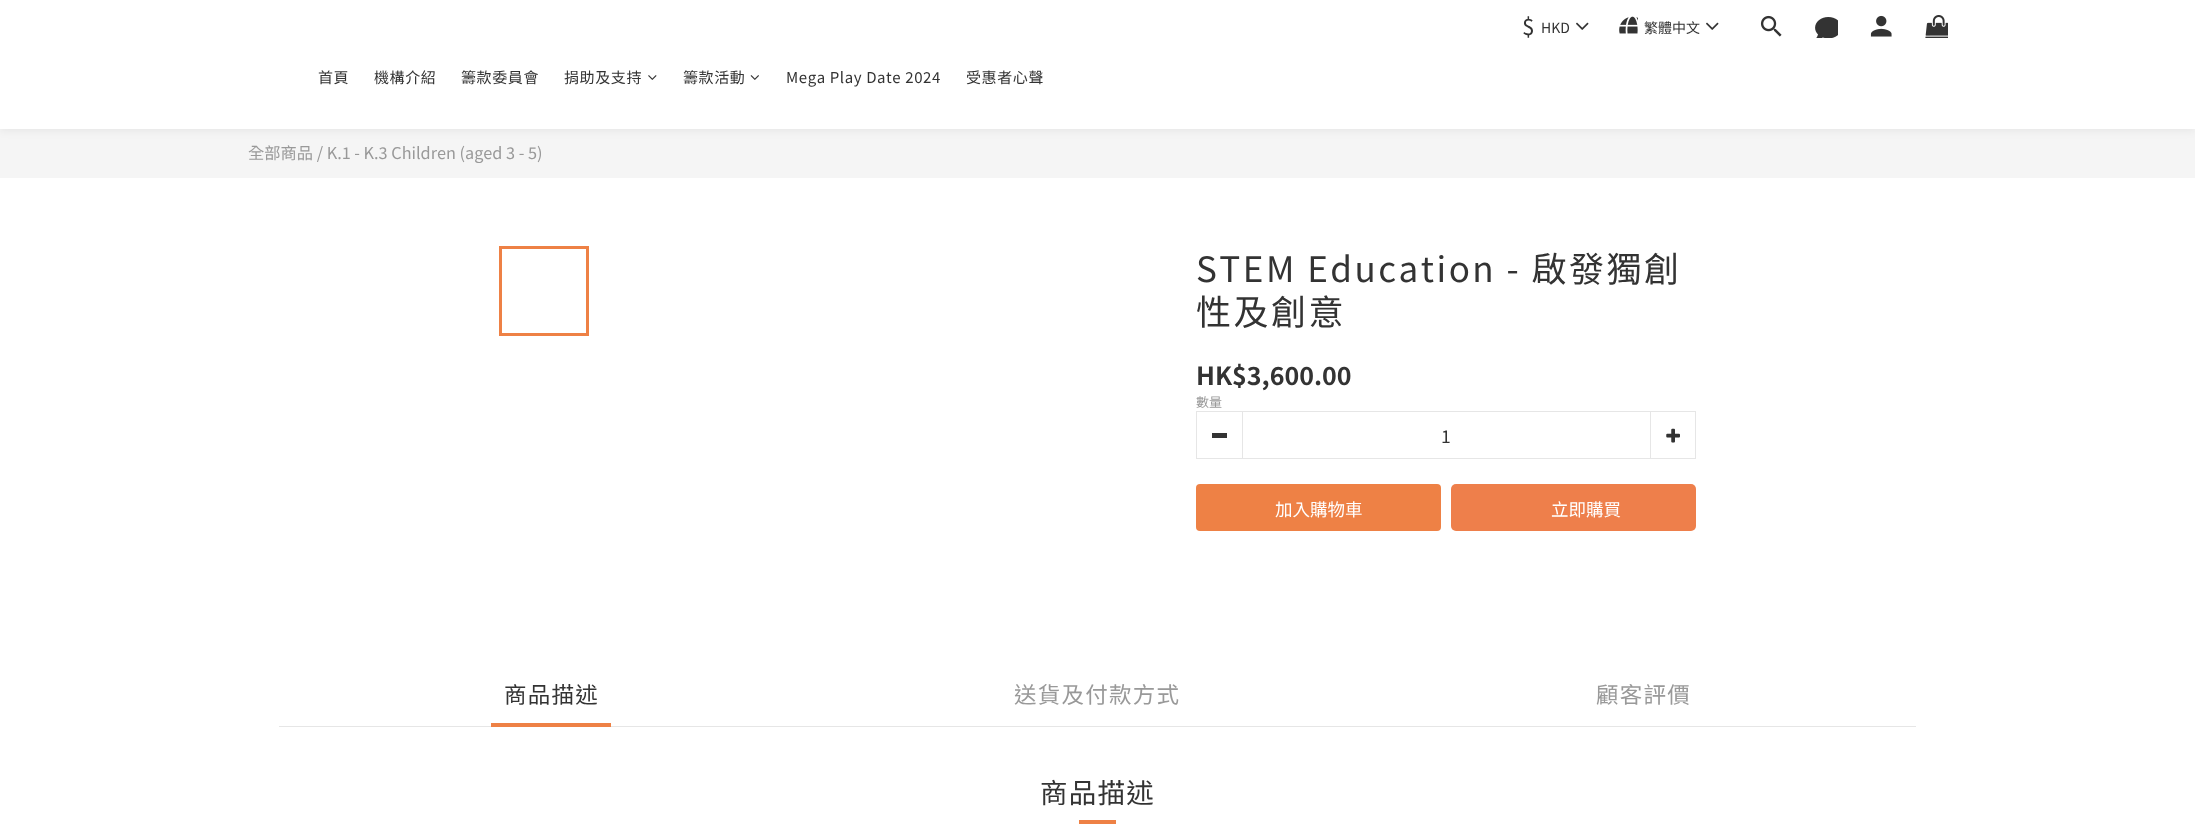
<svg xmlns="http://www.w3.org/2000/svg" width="2195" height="829">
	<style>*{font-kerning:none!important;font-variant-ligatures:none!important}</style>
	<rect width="100%" height="100%" fill="#FFFFFF" />
	<rect x="0" y="129" width="2195" height="49" fill="#F5F5F5" />
	<rect x="0" y="3" width="2195" height="128" fill="#000000" fill-opacity="0.06" filter="blur(4px)" />
	<rect x="0" y="0" width="2195" height="129" fill="#FFFFFF" />
	<text x="1522" y="35" font-family="Noto Sans TC" font-size="22.5" letter-spacing="1.25" fill="#333333">$</text>
	<text x="1541" y="33" font-family="Noto Sans TC" font-size="14" fill="#333333">HKD</text>
	<image x="1576" y="22" width="13" height="8" href="assets/img1.png" />
	<image x="1619" y="16" width="19" height="18" href="assets/img2.png" />
	<text x="1644" y="33" font-family="Noto Sans TC" font-size="14" fill="#333333">繁體中文</text>
	<image x="1706" y="22" width="13" height="8" href="assets/img1.png" />
	<image x="1760" y="15" width="22" height="22" href="assets/img3.png" />
	<image x="1815" y="17" width="23" height="21" href="assets/img4.png" />
	<image x="1870" y="15" width="22" height="22" href="assets/img5.png" />
	<image x="1925" y="15" width="23" height="23" href="assets/img6.png" />
	<g font-family="Noto Sans TC" font-size="15" letter-spacing="0.6" fill="#333333">
		<text x="318" y="83">首頁</text>
		<text x="374" y="83">機構介紹</text>
		<text x="461" y="83">籌款委員會</text>
		<text x="564" y="83">捐助及支持</text>
	</g>
	<image x="648" y="75" width="9" height="5" href="assets/img7.png" />
	<text x="683" y="83" font-family="Noto Sans TC" font-size="15" letter-spacing="0.6" fill="#333333">籌款活動</text>
	<image x="750" y="75" width="9" height="5" href="assets/img8.png" />
	<g font-family="Noto Sans TC" font-size="15" letter-spacing="0.6" fill="#333333">
		<text x="786" y="83">Mega Play Date 2024</text>
		<text x="966" y="83">受惠者心聲</text>
	</g>
	<text x="248" y="159" font-family="Noto Sans TC" font-size="16.25" fill="#999999">全部商品 / K.1 - K.3 Children (aged 3 - 5)</text>
	<rect x="500.5" y="247.5" width="87" height="87" fill="none" stroke="#EE8145" stroke-width="3" />
	<g font-family="Noto Sans TC" font-size="35" letter-spacing="2.5" fill="#333333">
		<text x="1196" y="282">STEM Education - 啟發獨創</text>
		<text x="1196" y="325">性及創意</text>
	</g>
	<text x="1196" y="385" font-family="Noto Sans TC" font-size="25" font-weight="700" fill="#333333">HK$3,600.00</text>
	<text x="1196" y="407" font-family="Noto Sans TC" font-size="13" fill="#999999">數量</text>
	<rect x="1241" y="411" width="410" height="1" fill="#E6E6E6" />
	<rect x="1241" y="458" width="410" height="1" fill="#E6E6E6" />
	<rect x="1196.5" y="411.5" width="46" height="47" fill="none" stroke="#E6E6E6" />
	<rect x="1212" y="433" width="15" height="5" fill="#333333" />
	<text x="1441" y="443" font-family="Noto Sans TC" font-size="17.5" fill="#333333">1</text>
	<rect x="1650.5" y="411.5" width="45" height="47" fill="none" stroke="#E6E6E6" />
	<image x="1666" y="428" width="14" height="15" href="assets/img9.png" />
	<rect x="1196" y="484" width="245" height="47" rx="4" fill="#EE8145" />
	<text x="1275" y="516" font-family="Noto Sans TC" font-size="17.5" fill="#FFFFFF">加入購物車</text>
	<rect x="1451" y="484" width="245" height="47" rx="5" fill="#EE7F4B" />
	<text x="1551" y="516" font-family="Noto Sans TC" font-size="17.5" fill="#FFFFFF">立即購買</text>
	<rect x="279" y="726" width="1637" height="1" fill="#E6E6E6" />
	<text x="504" y="703" font-family="Noto Sans TC" font-size="22.5" letter-spacing="1.25" fill="#333333">商品描述</text>
	<rect x="491" y="723" width="120" height="4" fill="#EE8145" />
	<g font-family="Noto Sans TC" font-size="22.5" letter-spacing="1.25" fill="#999999">
		<text x="1014" y="703">送貨及付款方式</text>
		<text x="1596" y="703">顧客評價</text>
	</g>
	<text x="1040" y="803" font-family="Noto Sans TC" font-size="27.5" letter-spacing="1.25" fill="#333333">商品描述</text>
	<rect x="1079" y="820" width="37" height="4" fill="#EE8145" />
</svg>
